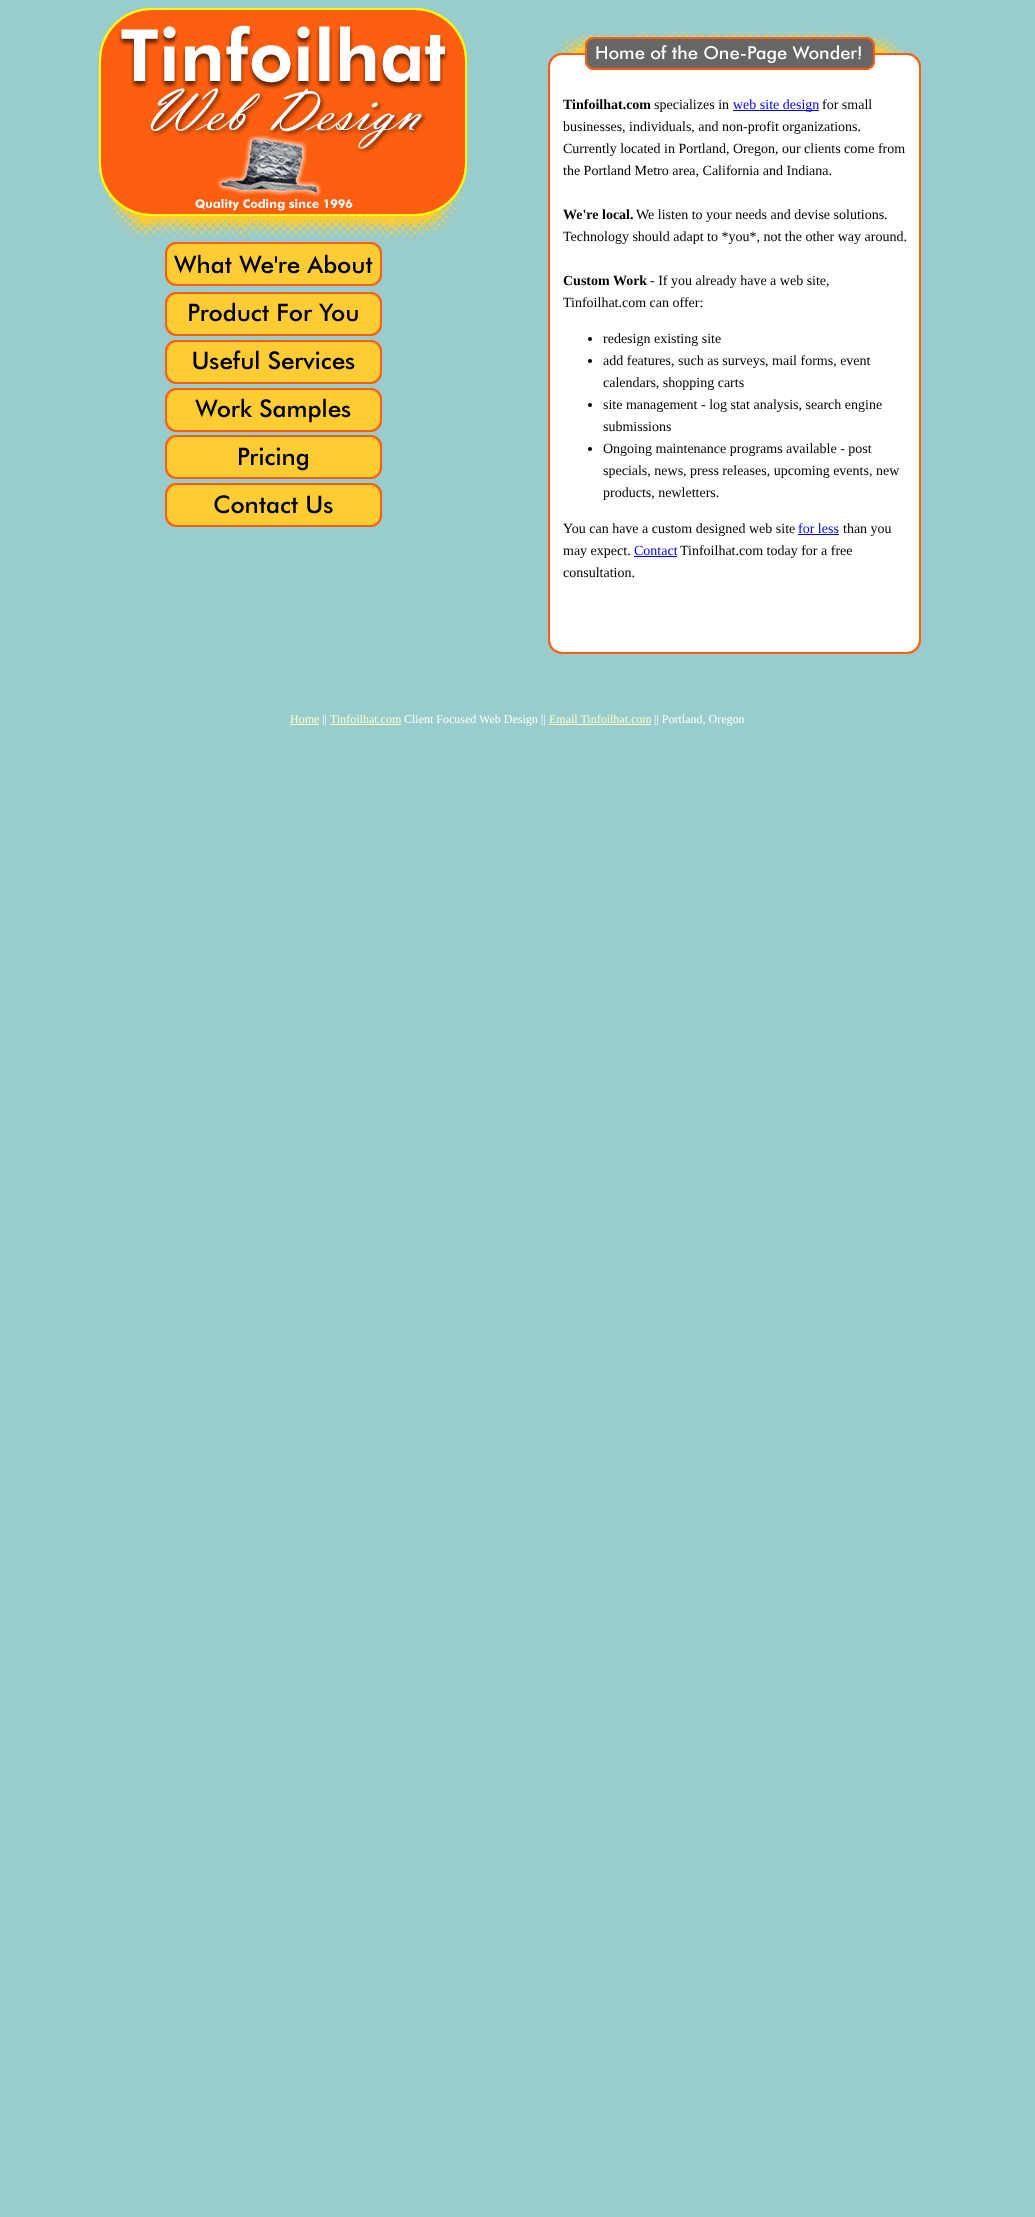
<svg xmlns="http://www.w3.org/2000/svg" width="1035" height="2217">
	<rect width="100%" height="100%" fill="#99CCCC" />
	<image x="99" y="8" width="368" height="233" href="assets/img1.png" />
	<image x="165" y="242" width="217" height="44" href="assets/img2.png" />
	<image x="165" y="292" width="217" height="44" href="assets/img3.png" />
	<image x="165" y="340" width="217" height="44" href="assets/img4.png" />
	<image x="165" y="388" width="217" height="44" href="assets/img5.png" />
	<image x="165" y="435" width="217" height="44" href="assets/img6.png" />
	<image x="165" y="483" width="217" height="44" href="assets/img7.png" />
	<image x="543" y="15" width="399" height="613" href="assets/img8.png" />
	<image x="548" y="15" width="373" height="55" href="assets/img9.png" />
	<text x="563" y="109" font-family="Liberation Serif" font-size="14" font-weight="700" fill="#000000">Tinfoilhat.com</text>
	<text x="654" y="109" font-family="Liberation Serif" font-size="14" fill="#000000">specializes in</text>
	<rect x="733" y="110" width="86" height="1" fill="#0000EE" />
	<text x="733" y="109" font-family="Liberation Serif" font-size="14" fill="#0000EE">web site design</text>
	<g font-family="Liberation Serif" font-size="14" fill="#000000">
		<text x="822" y="109">for small</text>
		<text x="563" y="131">businesses, individuals, and non-profit organizations.</text>
		<text x="563" y="153">Currently located in Portland, Oregon, our clients come from</text>
		<text x="563" y="175">the Portland Metro area, California and Indiana.</text>
	</g>
	<text x="563" y="219" font-family="Liberation Serif" font-size="14" font-weight="700" fill="#000000">We're local.</text>
	<g font-family="Liberation Serif" font-size="14" fill="#000000">
		<text x="636" y="219">We listen to your needs and devise solutions.</text>
		<text x="563" y="241">Technology should adapt to *you*, not the other way around.</text>
	</g>
	<text x="563" y="285" font-family="Liberation Serif" font-size="14" font-weight="700" fill="#000000">Custom Work</text>
	<g font-family="Liberation Serif" font-size="14" fill="#000000">
		<text x="650" y="285">- If you already have a web site,</text>
		<text x="563" y="307">Tinfoilhat.com can offer:</text>
	</g>
	<circle cx="590" cy="339" r="2" fill="#000000" />
	<text x="603" y="343" font-family="Liberation Serif" font-size="14" fill="#000000">redesign existing site</text>
	<circle cx="590" cy="361" r="2" fill="#000000" />
	<g font-family="Liberation Serif" font-size="14" fill="#000000">
		<text x="603" y="365">add features, such as surveys, mail forms, event</text>
		<text x="603" y="387">calendars, shopping carts</text>
	</g>
	<circle cx="590" cy="405" r="2" fill="#000000" />
	<g font-family="Liberation Serif" font-size="14" fill="#000000">
		<text x="603" y="409">site management - log stat analysis, search engine</text>
		<text x="603" y="431">submissions</text>
	</g>
	<circle cx="590" cy="449" r="2" fill="#000000" />
	<g font-family="Liberation Serif" font-size="14" fill="#000000">
		<text x="603" y="453">Ongoing maintenance programs available - post</text>
		<text x="603" y="475">specials, news, press releases, upcoming events, new</text>
		<text x="603" y="497">products, newletters.</text>
		<text x="563" y="533">You can have a custom designed web site</text>
	</g>
	<text x="798" y="533" font-family="Liberation Serif" font-size="14" fill="#0000EE">for less</text>
	<rect x="798" y="534" width="41" height="1" fill="#0000EE" />
	<g font-family="Liberation Serif" font-size="14" fill="#000000">
		<text x="843" y="533">than you</text>
		<text x="563" y="555">may expect.</text>
	</g>
	<text x="634" y="555" font-family="Liberation Serif" font-size="14" fill="#0000EE">Contact</text>
	<rect x="634" y="556" width="43" height="1" fill="#0000EE" />
	<g font-family="Liberation Serif" font-size="14" fill="#000000">
		<text x="680" y="555">Tinfoilhat.com today for a free</text>
		<text x="563" y="577">consultation.</text>
	</g>
	<image x="548" y="628" width="373" height="26" href="assets/img10.png" />
	<text x="290" y="723" font-family="Liberation Serif" font-size="12" fill="#FFFFCC">Home</text>
	<rect x="290" y="724" width="29" height="1" fill="#FFFFCC" />
	<text x="322" y="723" font-family="Liberation Serif" font-size="12" fill="#FFFFFF">||</text>
	<text x="330" y="723" font-family="Liberation Serif" font-size="12" fill="#FFFFCC">Tinfoilhat.com</text>
	<rect x="330" y="724" width="71" height="1" fill="#FFFFCC" />
	<text x="404" y="723" font-family="Liberation Serif" font-size="12" fill="#FFFFFF">Client Focused Web Design ||</text>
	<text x="549" y="723" font-family="Liberation Serif" font-size="12" fill="#FFFFCC">Email Tinfoilhat.com</text>
	<rect x="549" y="724" width="102" height="1" fill="#FFFFCC" />
	<text x="654" y="723" font-family="Liberation Serif" font-size="12" fill="#FFFFFF">|| Portland, Oregon</text>
</svg>
